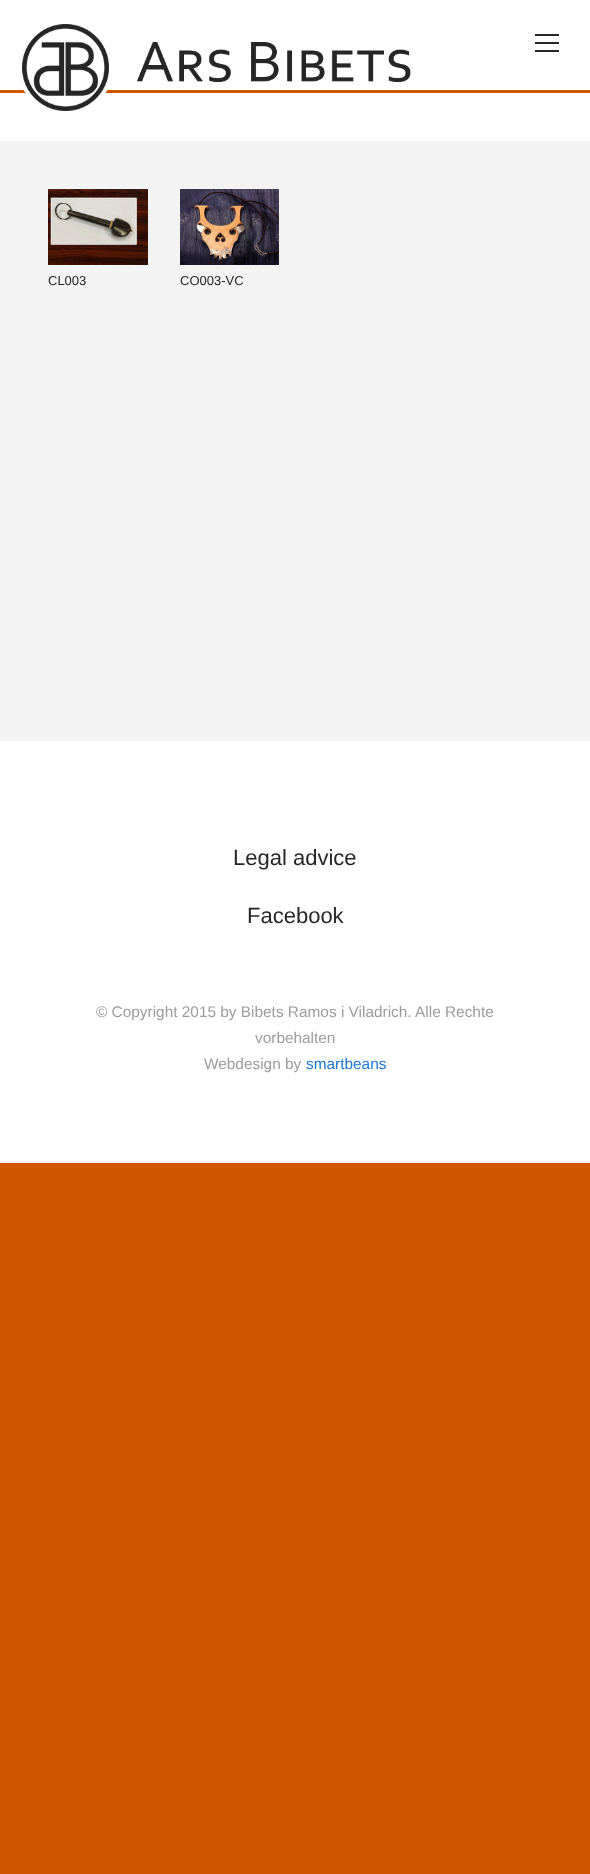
<svg xmlns="http://www.w3.org/2000/svg" width="590" height="1874">
	<rect width="100%" height="100%" fill="#D15600" />
	<rect x="0" y="0" width="590" height="90" fill="#FFFFFF" />
	<rect x="0" y="93" width="590" height="48" fill="#FFFFFF" />
	<image x="22" y="24" width="87" height="87" href="assets/img1.png" />
	<image x="137" y="42" width="274" height="40" href="assets/img2.png" />
	<rect x="535" y="34" width="24" height="2" fill="#262626" />
	<rect x="535" y="42" width="24" height="2" fill="#262626" />
	<rect x="535" y="50" width="24" height="2" fill="#262626" />
	<rect x="0" y="141" width="590" height="600" fill="#F3F3F3" />
	<image x="48" y="189" width="100" height="76" href="assets/img3.png" />
	<text x="48" y="285" font-family="Liberation Sans" font-size="13" fill="#262626">CL003</text>
	<image x="180" y="189" width="99" height="76" href="assets/img4.png" />
	<text x="180" y="285" font-family="Liberation Sans" font-size="13" fill="#262626">CO003-VC</text>
	<rect x="0" y="741" width="590" height="422" fill="#FFFFFF" />
	<g font-family="Liberation Sans" font-size="22" fill="#262626">
		<text x="233" y="865">Legal advice</text>
		<text x="247" y="923">Facebook</text>
	</g>
	<g font-family="Liberation Sans" font-size="15.4" fill="#9C9C9C">
		<text x="96" y="1017">© Copyright 2015 by Bibets Ramos i Viladrich. Alle Rechte</text>
		<text x="255" y="1043">vorbehalten</text>
		<text x="204" y="1069">Webdesign by</text>
	</g>
	<text x="306" y="1069" font-family="Liberation Sans" font-size="15.4" fill="#1E78D2">smartbeans</text>
</svg>
